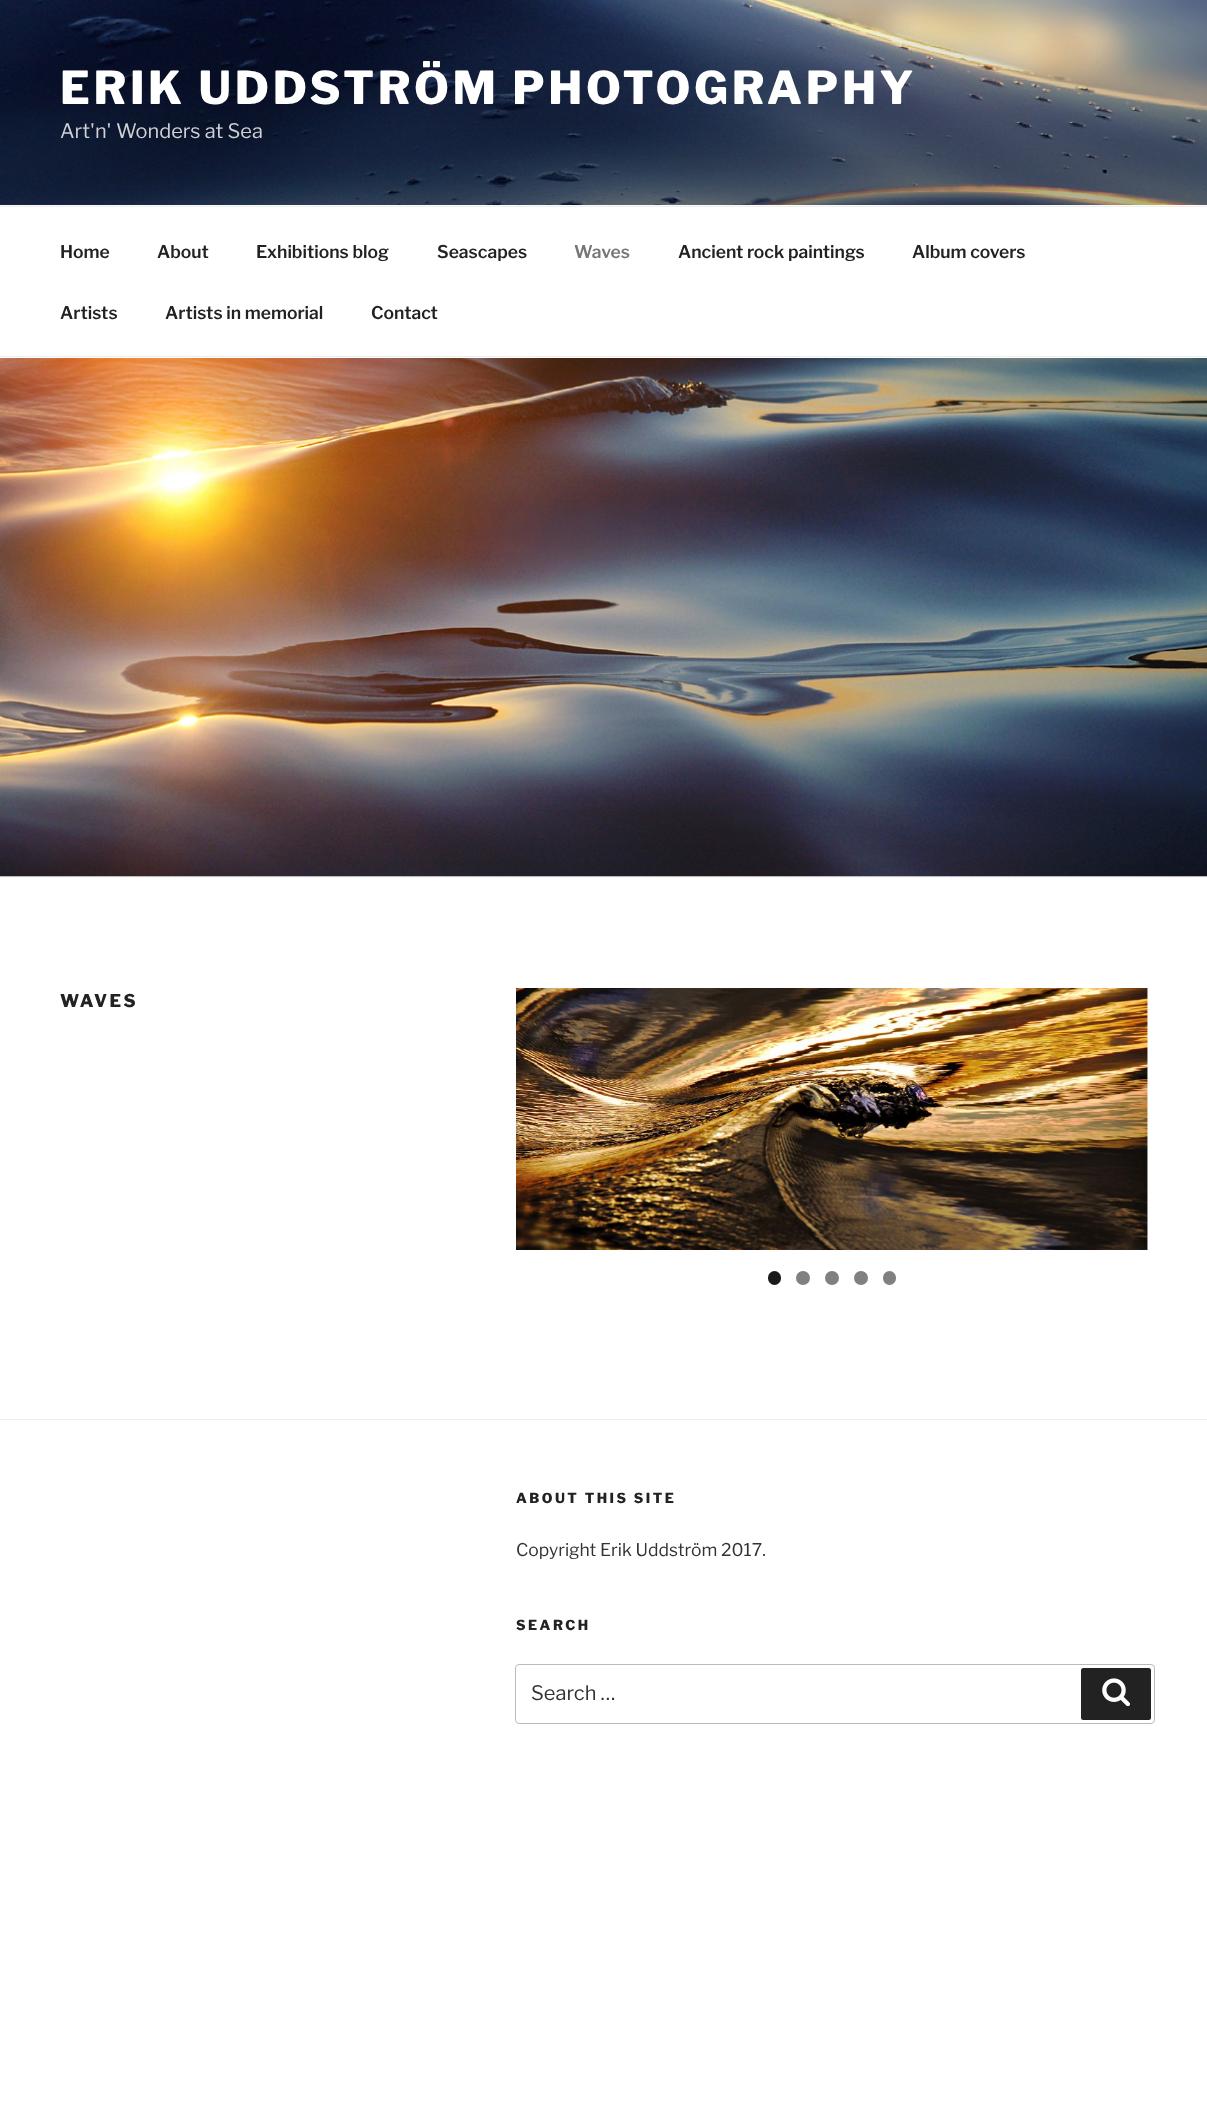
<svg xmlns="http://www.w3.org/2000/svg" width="1207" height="2107">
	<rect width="100%" height="100%" fill="#FFFFFF" />
	<rect x="0" y="205" width="1207" height="1" fill="#FAFAFA" />
	<image x="0" y="0" width="1207" height="205" href="assets/img1.png" />
	<text x="60" y="104" font-family="Libre Franklin" font-size="45" font-weight="800" letter-spacing="3.6" fill="#FFFFFF">ERIK UDDSTRÖM PHOTOGRAPHY</text>
	<g font-family="Libre Franklin" font-size="20" fill="#CFD1D6">
		<text x="60" y="138">Art'n'</text>
		<text x="116" y="138">Wonders at Sea</text>
	</g>
	<rect x="0" y="206" width="1207" height="1" fill="#EEEEEE" />
	<rect x="0" y="356" width="1207" height="1" fill="#EEEEEE" />
	<g font-family="Libre Franklin" font-size="17.5" font-weight="600" fill="#222222">
		<text x="60" y="258">Home</text>
		<text x="157" y="258">About</text>
		<text x="256" y="258">Exhibitions blog</text>
		<text x="437" y="258">Seascapes</text>
	</g>
	<text x="574" y="258" font-family="Libre Franklin" font-size="17.5" font-weight="600" fill="#767676">Waves</text>
	<g font-family="Libre Franklin" font-size="17.5" font-weight="600" fill="#222222">
		<text x="678" y="258">Ancient rock paintings</text>
		<text x="912" y="258">Album covers</text>
		<text x="60" y="319">Artists</text>
		<text x="165" y="319">Artists in memorial</text>
		<text x="371" y="319">Contact</text>
	</g>
	<rect x="0" y="877" width="1207" height="1" fill="#FAFAFA" />
	<rect x="0" y="876" width="1207" height="1" fill="#EEEEEE" />
	<image x="0" y="358" width="1207" height="519" href="assets/img2.png" />
	<text x="60" y="1007" font-family="Libre Franklin" font-size="17.5" font-weight="800" letter-spacing="2.5" fill="#222222">WAVES</text>
	<image x="516" y="988" width="632" height="262" href="assets/img3.png" />
	<rect x="768" y="1271" width="13" height="14" rx="6.5" fill="#1A1A1A" />
	<circle cx="803" cy="1278" r="7" fill="#808080" />
	<circle cx="832" cy="1278" r="7" fill="#808080" />
	<circle cx="861" cy="1278" r="7" fill="#808080" />
	<rect x="883" y="1271" width="13" height="14" rx="6.5" fill="#808080" />
	<rect x="0" y="1419" width="1207" height="1" fill="#EEEEEE" />
	<text x="516" y="1503" font-family="Libre Franklin" font-size="13.75" font-weight="800" letter-spacing="2.5" fill="#222222">ABOUT THIS SITE</text>
	<text x="516" y="1556" font-family="Libre Franklin" font-size="17.5" fill="#333333">Copyright Erik Uddström 2017.</text>
	<text x="516" y="1630" font-family="Libre Franklin" font-size="13.75" font-weight="800" letter-spacing="2.5" fill="#222222">SEARCH</text>
	<rect x="515.5" y="1664.5" width="639" height="59" rx="3.5" fill="none" stroke="#BBBBBB" />
	<text x="531" y="1700" font-family="Libre Franklin" font-size="20" fill="#333333">Search …</text>
	<rect x="1081" y="1668" width="70" height="52" rx="2.5" fill="#222222" />
	<image x="1102" y="1678" width="28" height="28" href="assets/img4.png" />
</svg>
